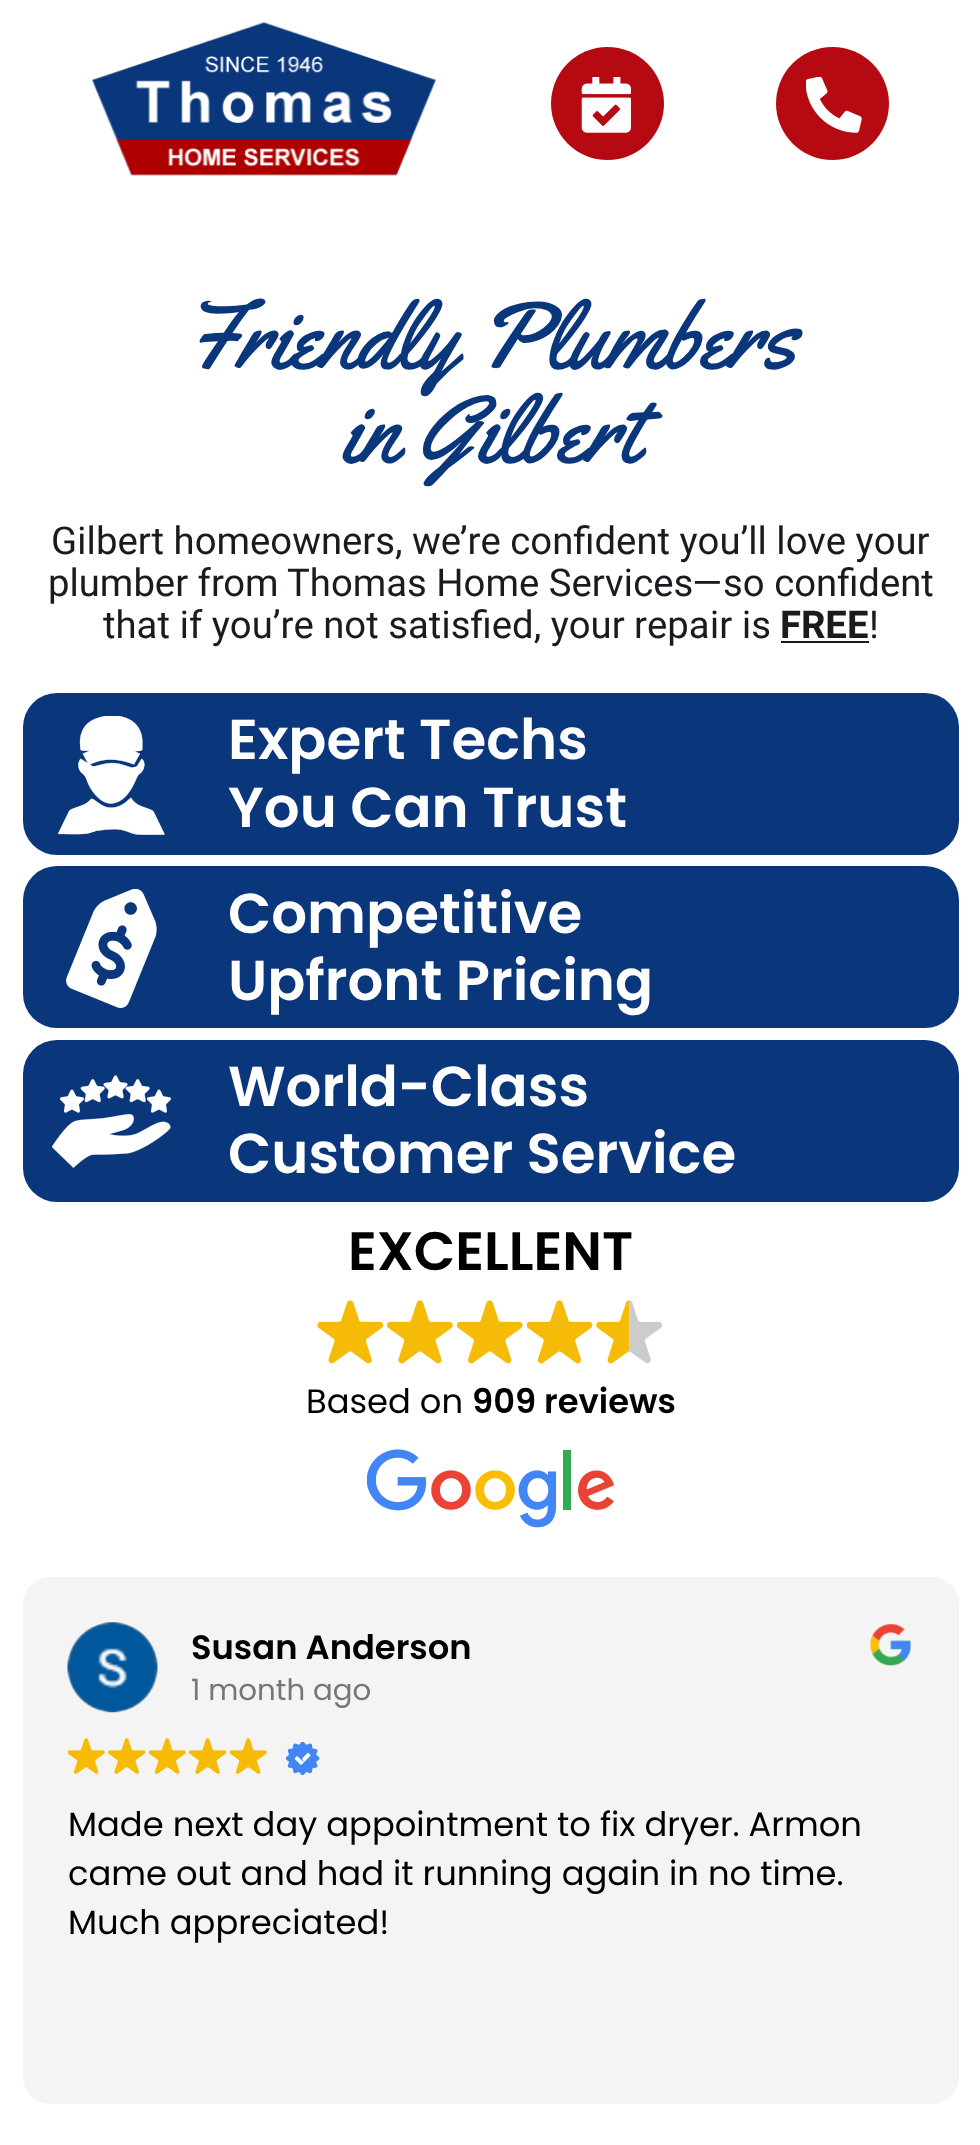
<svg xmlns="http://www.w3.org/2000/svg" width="980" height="2145">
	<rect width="100%" height="100%" fill="#FFFFFF" />
	<image x="92" y="22" width="344" height="154" href="assets/img1.png" />
	<circle cx="607.5" cy="103.5" r="56.5" fill="#B60A13" />
	<image x="581" y="77" width="50" height="56" href="assets/img2.png" />
	<circle cx="832.5" cy="103.5" r="56.5" fill="#B60A13" />
	<image x="806" y="77" width="56" height="56" href="assets/img3.png" />
	<g font-family="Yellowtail" font-size="94.5" fill="#0A377B">
		<text x="183" y="368">Friendly Plumbers</text>
		<text x="342" y="462">in Gilbert</text>
	</g>
	<g font-family="Heebo" font-size="38.25" fill="#191B1F">
		<text x="51" y="554">Gilbert homeowners, we’re confident you’ll love your</text>
		<text x="48" y="596">plumber from Thomas Home Services—so confident</text>
		<text x="103" y="638">that if you’re not satisfied, your repair is</text>
	</g>
	<text x="780" y="638" font-family="Heebo" font-size="38.25" font-weight="700" fill="#191B1F">FREE</text>
	<rect x="781" y="641" width="88" height="2" fill="#191B1F" />
	<text x="869" y="638" font-family="Heebo" font-size="38.25" fill="#191B1F">!</text>
	<rect x="23" y="693" width="936" height="162" rx="34" fill="#0A377B" />
	<image x="58" y="716" width="107" height="119" href="assets/img4.png" />
	<g font-family="Poppins" font-size="56.25" font-weight="600" fill="#FFFFFF">
		<text x="228" y="759">Expert Techs</text>
		<text x="228" y="827">You Can Trust</text>
	</g>
	<rect x="23" y="866" width="936" height="162" rx="34" fill="#0A377B" />
	<image x="66" y="889" width="91" height="119" href="assets/img5.png" />
	<g font-family="Poppins" font-size="56.25" font-weight="600" fill="#FFFFFF">
		<text x="228" y="933">Competitive</text>
		<text x="228" y="1000">Upfront Pricing</text>
	</g>
	<rect x="23" y="1040" width="936" height="162" rx="34" fill="#0A377B" />
	<image x="52" y="1075" width="119" height="93" href="assets/img6.png" />
	<g font-family="Poppins" font-size="56.25" font-weight="600" fill="#FFFFFF">
		<text x="228" y="1106">World-Class</text>
		<text x="228" y="1173">Customer Service</text>
	</g>
	<text x="348" y="1270" font-family="Poppins" font-size="54" font-weight="600" fill="#000000">EXCELLENT</text>
	<image x="317" y="1300" width="67" height="64" href="assets/img7.png" />
	<image x="387" y="1300" width="66" height="64" href="assets/img8.png" />
	<image x="457" y="1300" width="66" height="64" href="assets/img9.png" />
	<image x="527" y="1300" width="66" height="64" href="assets/img10.png" />
	<image x="596" y="1300" width="66" height="64" href="assets/img11.png" />
	<text x="306" y="1413" font-family="Poppins" font-size="33.75" fill="#000000">Based on</text>
	<text x="472" y="1413" font-family="Poppins" font-size="33.75" font-weight="600" fill="#000000">909 reviews</text>
	<image x="367" y="1449" width="247" height="79" href="assets/img12.png" />
	<rect x="23" y="1577" width="936" height="527" rx="27" fill="#F4F4F4" />
	<image x="67" y="1622" width="91" height="91" href="assets/img13.png" />
	<text x="191" y="1659" font-family="Poppins" font-size="33.75" font-weight="600" fill="#000000">Susan Anderson</text>
	<text x="191" y="1700" font-family="Poppins" font-size="29.25" fill="#767676">1 month ago</text>
	<image x="870" y="1624" width="42" height="42" href="assets/img14.png" />
	<image x="68" y="1738" width="37" height="36" href="assets/img15.png" />
	<image x="108" y="1738" width="38" height="36" href="assets/img16.png" />
	<image x="149" y="1738" width="37" height="36" href="assets/img15.png" />
	<image x="189" y="1738" width="38" height="36" href="assets/img16.png" />
	<image x="230" y="1738" width="37" height="36" href="assets/img15.png" />
	<image x="286" y="1742" width="34" height="33" href="assets/img17.png" />
	<g font-family="Poppins" font-size="33.75" fill="#000000">
		<text x="68" y="1836">Made next day appointment to fix dryer. Armon</text>
		<text x="68" y="1885">came out and had it running again in no time.</text>
		<text x="68" y="1934">Much appreciated!</text>
	</g>
</svg>
